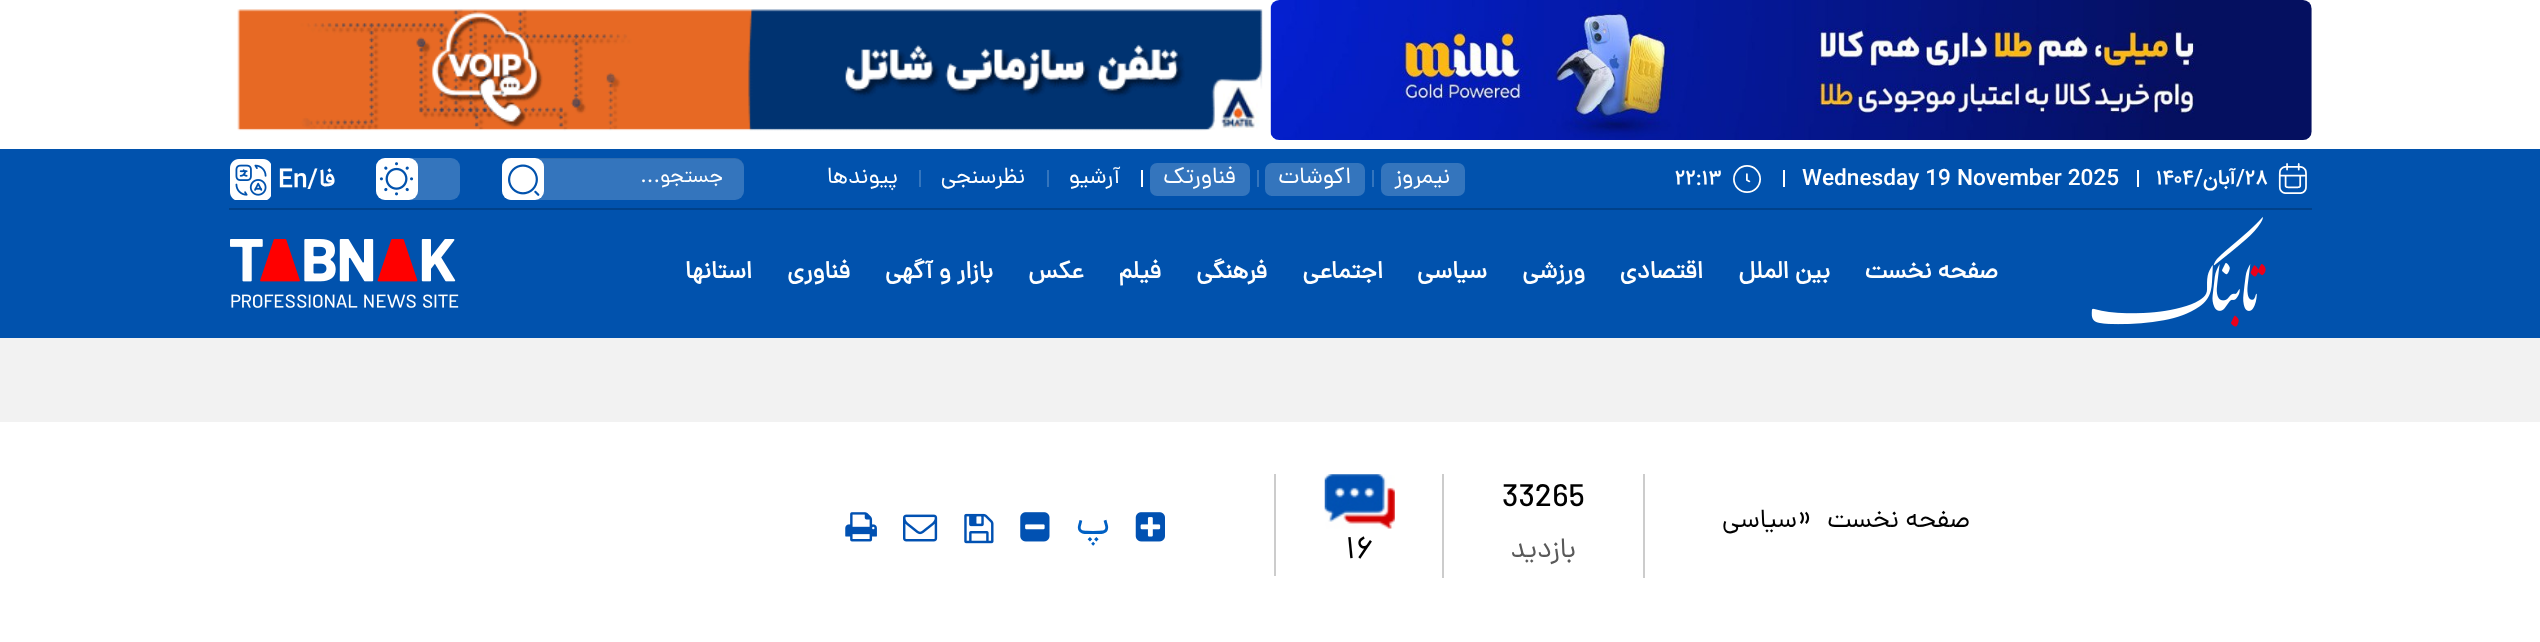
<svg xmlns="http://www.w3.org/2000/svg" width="2540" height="642">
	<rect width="100%" height="100%" fill="#FFFFFF" />
	<image x="1270" y="0" width="1042" height="140" href="assets/img1.png" />
	<image x="237" y="8" width="1034" height="125" href="assets/img2.png" />
	<rect x="0" y="149" width="2540" height="189" fill="#0152AD" />
	<rect x="229" y="208" width="2083" height="2" fill="#00418A" />
	<image x="2278" y="163" width="29" height="31" href="assets/img3.png" />
	<text x="2245" y="184" font-family="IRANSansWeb" font-size="21" font-weight="500" fill="#FFFFFF">۲۸</text>
	<text x="2245" y="184" font-family="IRANSansWeb" font-size="21" font-weight="500" direction="rtl" fill="#FFFFFF">/آبان/</text>
	<text x="2156" y="184" font-family="IRANSansWeb" font-size="21" font-weight="500" fill="#FFFFFF">۱۴۰۴</text>
	<rect x="2137" y="170" width="2" height="17" fill="#FFFFFF" />
	<text x="1802" y="184" font-family="IRANSansWeb" font-size="21" font-weight="500" fill="#FFFFFF">Wednesday 19 November 2025</text>
	<rect x="1783" y="170" width="2" height="17" fill="#FFFFFF" />
	<image x="1733" y="165" width="28" height="28" href="assets/img4.png" />
	<text x="1675" y="184" font-family="IRANSansWeb" font-size="21" font-weight="500" fill="#FFFFFF">۲۲:۱۳</text>
	<rect x="1381" y="163" width="84" height="33" rx="7" fill="#3475BD" />
	<text x="1450" y="183" font-family="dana" font-size="23" direction="rtl" fill="#FFFFFF">نیمروز</text>
	<rect x="1372" y="170" width="2" height="17" fill="#3475BD" />
	<rect x="1265" y="163" width="100" height="33" rx="7" fill="#3475BD" />
	<text x="1351" y="183" font-family="dana" font-size="23" direction="rtl" fill="#FFFFFF">اکوشات</text>
	<rect x="1257" y="170" width="2" height="17" fill="#3475BD" />
	<rect x="1150" y="163" width="100" height="33" rx="7" fill="#3475BD" />
	<text x="1236" y="183" font-family="dana" font-size="23" direction="rtl" fill="#FFFFFF">فناورتک</text>
	<rect x="1141" y="170" width="2" height="17" fill="#FFFFFF" />
	<text x="1120" y="183" font-family="dana" font-size="23" direction="rtl" fill="#FFFFFF">آرشیو</text>
	<rect x="1047" y="170" width="2" height="17" fill="#3475BD" />
	<text x="1025" y="183" font-family="dana" font-size="23" direction="rtl" fill="#FFFFFF">نظرسنجی</text>
	<rect x="919" y="170" width="2" height="17" fill="#3475BD" />
	<text x="898" y="183" font-family="dana" font-size="23" direction="rtl" fill="#FFFFFF">پیوندها</text>
	<rect x="502" y="158" width="242" height="42" rx="9" fill="#3475BD" />
	<path d="M511 159H735C740 159 744 163 744 168V167C744 162 740 158 735 158H511C506 158 502 162 502 167V168C502 163 506 159 511 159Z" fill="#000000" fill-opacity="0.07" />
	<text x="723" y="182" font-family="dana" font-size="21" direction="rtl" fill="#FFFFFF">جستجو...</text>
	<rect x="502" y="158" width="42" height="42" rx="9" fill="#FFFFFF" />
	<image x="508" y="164" width="32" height="32" href="assets/img5.png" />
	<rect x="376" y="158" width="84" height="42" rx="9" fill="#3475BD" />
	<rect x="376" y="158" width="42" height="42" rx="9" fill="#FFFFFF" />
	<image x="379" y="162" width="35" height="34" href="assets/img6.png" />
	<text x="335" y="186" font-family="IRANSansWeb" font-size="24.5" font-weight="500" direction="rtl" fill="#FFFFFF">فا</text>
	<text x="278" y="186" font-family="IRANSansWeb" font-size="24.5" font-weight="500" fill="#FFFFFF">En/</text>
	<image x="230" y="159" width="41" height="41" href="assets/img7.png" />
	<image x="2091" y="217" width="175" height="110" href="assets/img8.png" />
	<g font-family="dana" font-size="24.5" font-weight="700" direction="rtl" fill="#FFFFFF">
		<text x="1998" y="278">صفحه نخست</text>
		<text x="1830" y="278">بین الملل</text>
		<text x="1703" y="278">اقتصادی</text>
		<text x="1585" y="278">ورزشی</text>
		<text x="1487" y="278">سیاسی</text>
		<text x="1383" y="278">اجتماعی</text>
		<text x="1267" y="278">فرهنگی</text>
		<text x="1161" y="278">فیلم</text>
		<text x="1084" y="278">عکس</text>
		<text x="993" y="278">بازار و آگهی</text>
		<text x="850" y="278">فناوری</text>
		<text x="752" y="278">استانها</text>
	</g>
	<image x="230" y="239" width="229" height="69" href="assets/img9.png" />
	<rect x="0" y="338" width="2540" height="84" fill="#F2F2F2" />
	<text x="1970" y="527" font-family="dana" font-size="26.25" direction="rtl" fill="#000000">صفحه نخست</text>
	<text x="1797" y="527" font-family="dana" font-size="32" fill="#000000">»</text>
	<text x="1797" y="527" font-family="dana" font-size="26.25" direction="rtl" fill="#000000">سیاسی</text>
	<rect x="1643" y="474" width="2" height="104" fill="#CCCCCC" />
	<rect x="1442" y="474" width="2" height="104" fill="#CCCCCC" />
	<text x="1502" y="506" font-family="dana" font-size="33" fill="#000000">33265</text>
	<text x="1576" y="557" font-family="dana" font-size="28" direction="rtl" fill="#595959">بازدید</text>
	<rect x="1274" y="474" width="2" height="102" fill="#CCCCCC" />
	<image x="1324" y="474" width="71" height="55" href="assets/img10.png" />
	<text x="1345" y="558" font-family="dana" font-size="32" fill="#000000">۱۶</text>
	<image x="1135" y="512" width="30" height="30" href="assets/img11.png" />
	<text x="1110" y="534" font-family="dana" font-size="37" direction="rtl" fill="#0060C4">پ</text>
	<image x="1020" y="512" width="30" height="30" href="assets/img12.png" />
	<image x="964" y="513" width="30" height="31" href="assets/img13.png" />
	<image x="903" y="514" width="35" height="28" href="assets/img14.png" />
	<image x="845" y="512" width="32" height="30" href="assets/img15.png" />
</svg>
